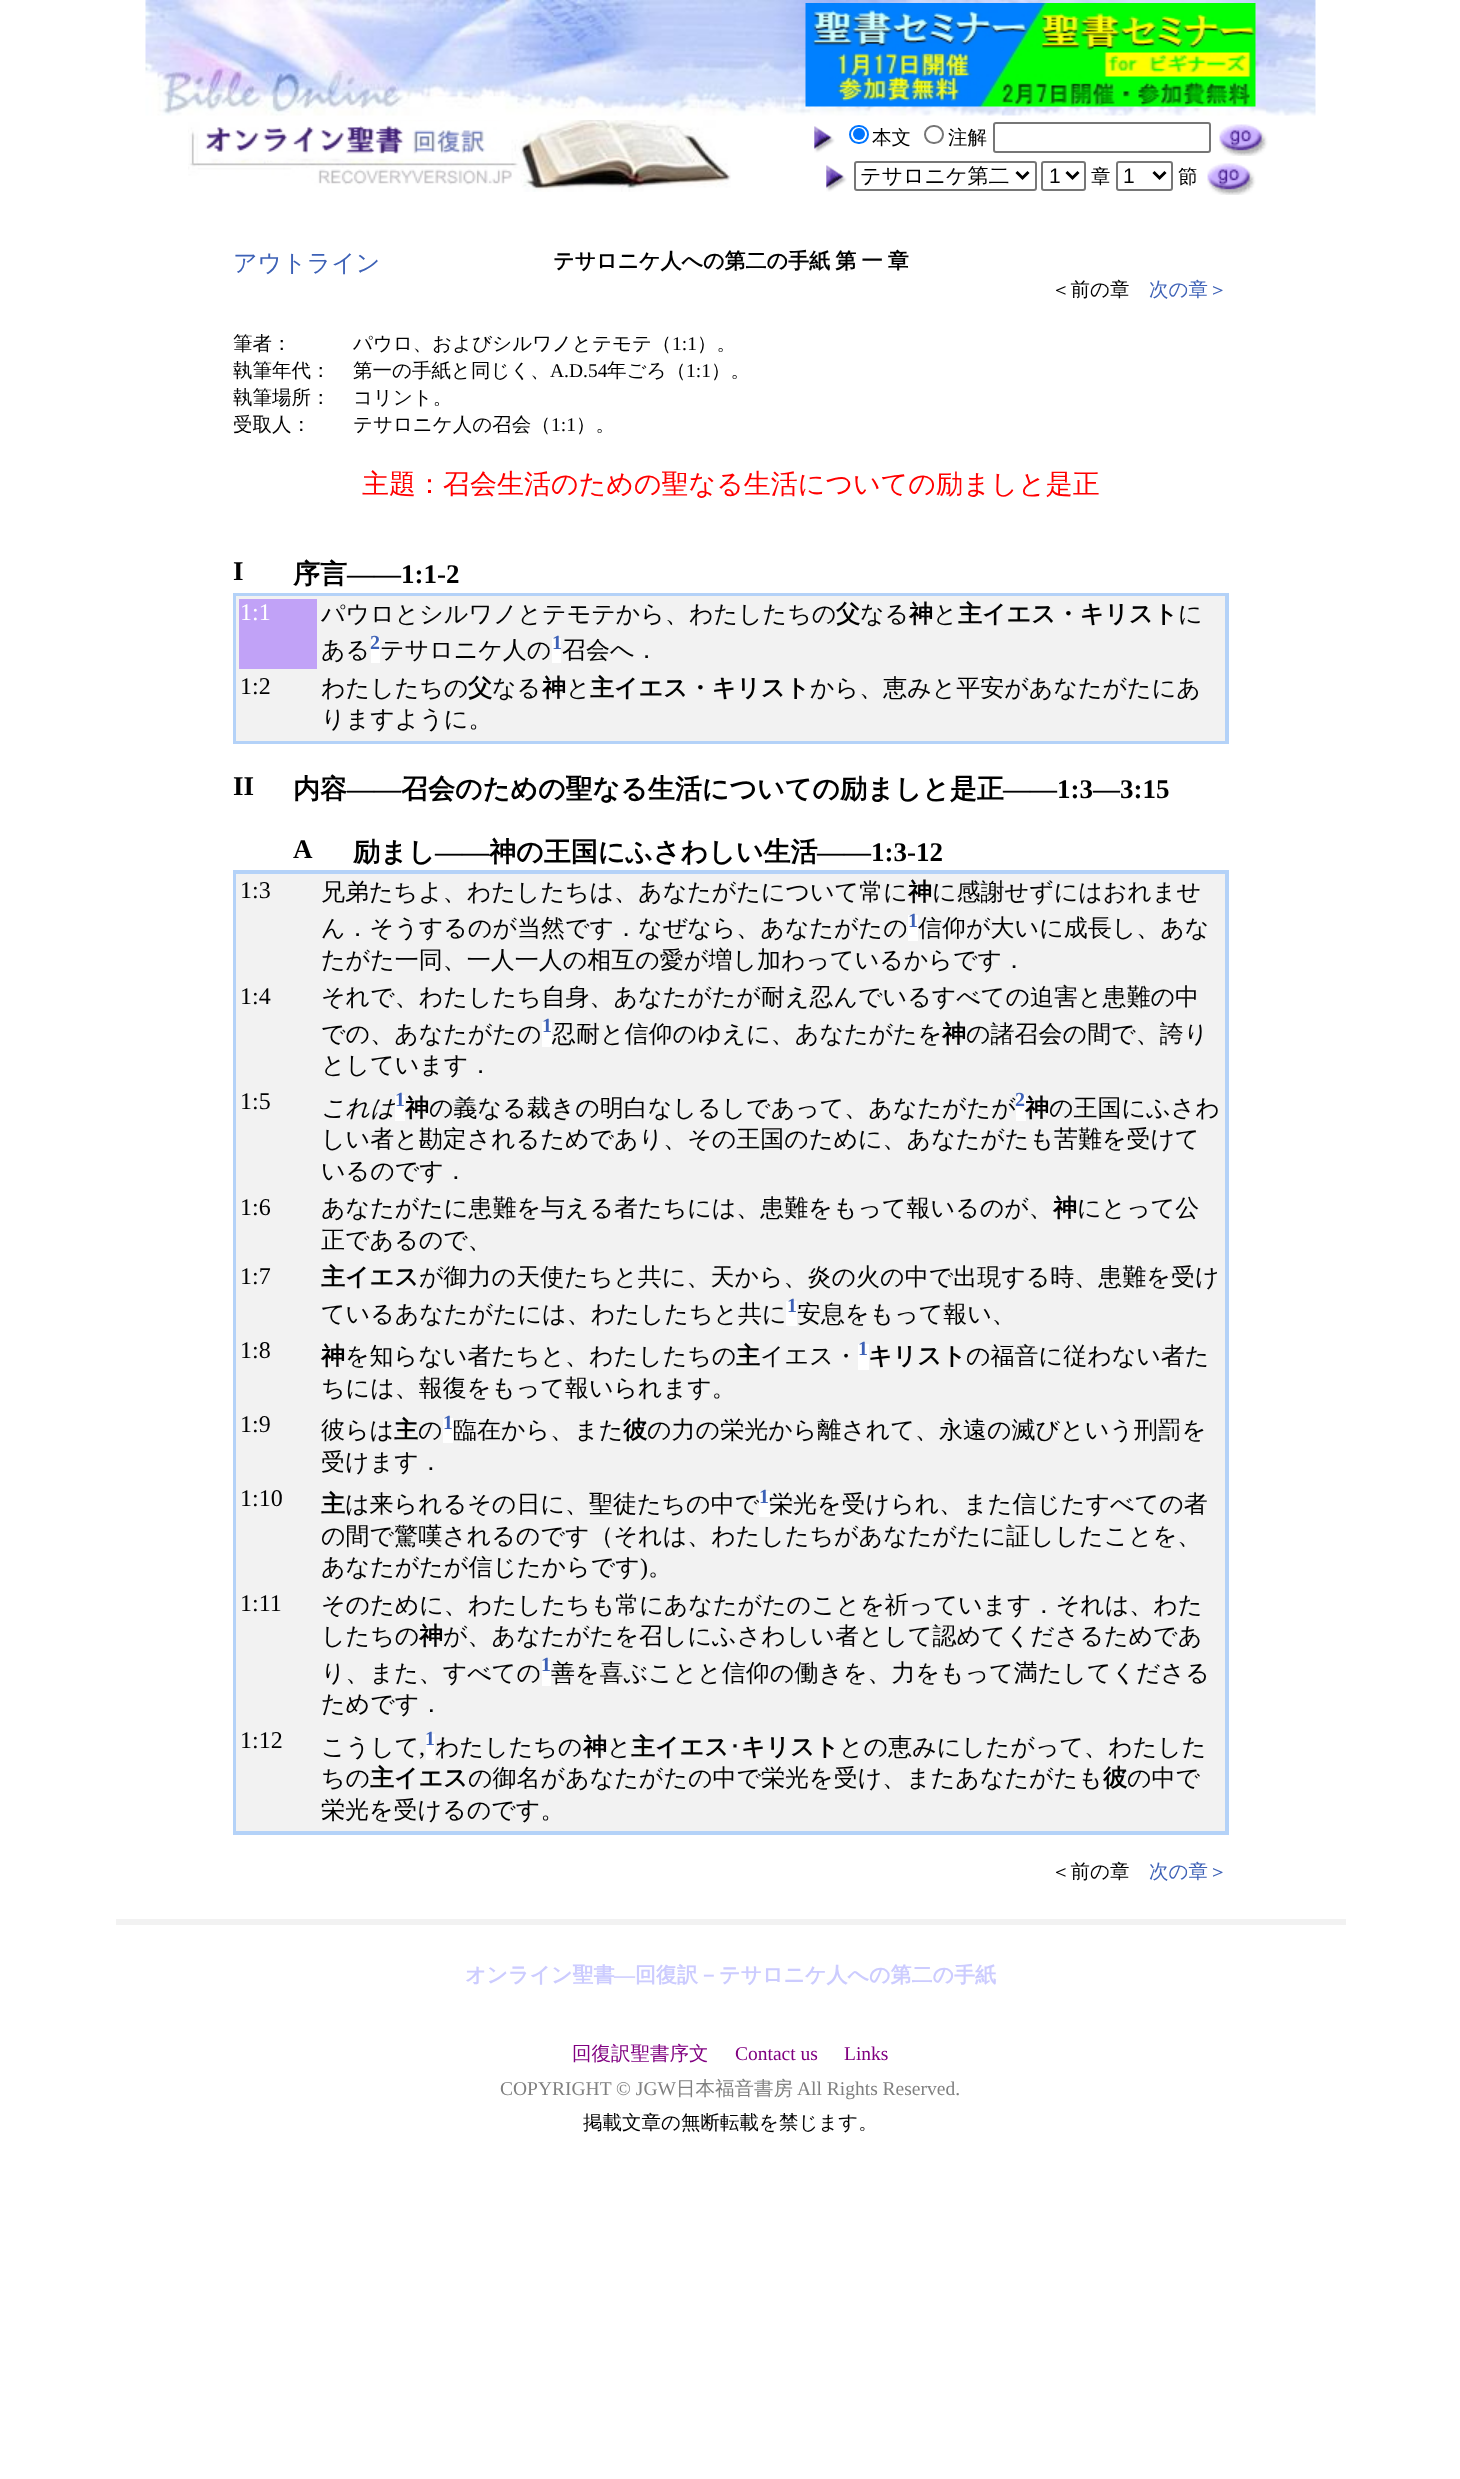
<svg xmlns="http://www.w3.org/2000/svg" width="1460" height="2479">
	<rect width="100%" height="100%" fill="#FFFFFF" />
	<image x="145" y="0" width="617" height="116" href="assets/img1.png" />
	<image x="762" y="0" width="554" height="116" href="assets/img2.png" />
	<image x="805" y="3" width="451" height="104" href="assets/img3.png" />
	<image x="188" y="120" width="543" height="72" href="assets/img4.png" />
	<image x="814" y="126" width="21" height="27" href="assets/img5.png" />
	<rect x="850" y="126" width="18" height="17" rx="8.5" fill="none" stroke="#0075FF" stroke-width="2" />
	<circle cx="859" cy="134" r="6" fill="#0075FF" />
	<text x="872" y="144" font-family="WenQuanYi Zen Hei" font-size="19.5" font-weight="500" fill="#000000">本文</text>
	<rect x="925" y="126" width="18" height="17" rx="8.5" fill="none" stroke="#767676" stroke-width="2" />
	<text x="948" y="144" font-family="WenQuanYi Zen Hei" font-size="19.5" font-weight="500" fill="#000000">注解</text>
	<rect x="994" y="123" width="216" height="29" rx="2" fill="none" stroke="#767676" stroke-width="2" />
	<image x="1219" y="124" width="49" height="32" href="assets/img6.png" />
	<image x="826" y="165" width="21" height="27" href="assets/img5.png" />
	<rect x="855" y="162" width="181" height="28" rx="2" fill="none" stroke="#767676" stroke-width="2" />
	<path d="M1016.5 172L1022.5 178L1028.5 172" fill="none" stroke="#000000" stroke-width="3" />
	<text x="860" y="183" font-family="WenQuanYi Zen Hei" font-size="21" font-weight="500" fill="#000000">テサロニケ第二</text>
	<rect x="1042" y="162" width="43" height="28" rx="2" fill="none" stroke="#767676" stroke-width="2" />
	<path d="M1066.5 172L1072.5 178L1078.5 172" fill="none" stroke="#000000" stroke-width="3" />
	<text x="1049" y="183" font-family="Liberation Sans" font-size="21" fill="#000000">1</text>
	<text x="1091" y="183" font-family="WenQuanYi Zen Hei" font-size="19.5" font-weight="500" fill="#000000">章</text>
	<rect x="1117" y="162" width="55" height="28" rx="2" fill="none" stroke="#767676" stroke-width="2" />
	<path d="M1153.5 172L1159.5 178L1165.5 172" fill="none" stroke="#000000" stroke-width="3" />
	<text x="1123" y="183" font-family="Liberation Sans" font-size="21" fill="#000000">1</text>
	<text x="1178" y="183" font-family="WenQuanYi Zen Hei" font-size="19.5" font-weight="500" fill="#000000">節</text>
	<image x="1207" y="163" width="49" height="32" href="assets/img6.png" />
	<text x="233" y="271" font-family="WenQuanYi Zen Hei" font-size="24" font-weight="500" fill="#3D61B6">アウトライン</text>
	<text x="553" y="268" word-spacing="-1" font-family="WenQuanYi Zen Hei" font-size="21" font-weight="700" fill="#000000">テサロニケ人への第二の手紙 第 一 章</text>
	<text x="1051" y="296" font-family="WenQuanYi Zen Hei" font-size="19.5" font-weight="500" fill="#000000">＜前の章</text>
	<text x="1149" y="296" font-family="WenQuanYi Zen Hei" font-size="19.5" font-weight="500" fill="#3D61B6">次の章＞</text>
	<g font-family="WenQuanYi Zen Hei" font-size="19.5" font-weight="500" fill="#000000">
		<text x="233" y="350">筆者：</text>
		<text x="353" y="350">パウロ、およびシルワノとテモテ（</text>
	</g>
	<text x="672" y="350" font-family="Liberation Serif" font-size="19.5" fill="#000000">1:1</text>
	<g font-family="WenQuanYi Zen Hei" font-size="19.5" font-weight="500" fill="#000000">
		<text x="697" y="350">）。</text>
		<text x="233" y="377">執筆年代：</text>
		<text x="353" y="377">第一の手紙と同じく、</text>
	</g>
	<text x="550" y="377" font-family="Liberation Serif" font-size="19.5" fill="#000000">A.D.54</text>
	<text x="607" y="377" font-family="WenQuanYi Zen Hei" font-size="19.5" font-weight="500" fill="#000000">年ごろ（</text>
	<text x="686" y="377" font-family="Liberation Serif" font-size="19.5" fill="#000000">1:1</text>
	<g font-family="WenQuanYi Zen Hei" font-size="19.5" font-weight="500" fill="#000000">
		<text x="711" y="377">）。</text>
		<text x="233" y="404">執筆場所：</text>
		<text x="353" y="404">コリント。</text>
		<text x="233" y="431">受取人：</text>
		<text x="353" y="431">テサロニケ人の召会（</text>
	</g>
	<text x="551" y="431" font-family="Liberation Serif" font-size="19.5" fill="#000000">1:1</text>
	<text x="576" y="431" font-family="WenQuanYi Zen Hei" font-size="19.5" font-weight="500" fill="#000000">）。</text>
	<text x="362" y="493" font-family="WenQuanYi Zen Hei" font-size="27" font-weight="500" fill="#FF0000">主題：召会生活のための聖なる生活についての励ましと是正</text>
	<text x="233" y="580" font-family="Liberation Serif" font-size="27" font-weight="700" fill="#000000">I</text>
	<text x="293" y="583" font-family="WenQuanYi Zen Hei" font-size="27" font-weight="700" fill="#000000">序言</text>
	<text x="347" y="583" font-family="Liberation Serif" font-size="27" font-weight="700" fill="#000000">――1:1-2</text>
	<rect x="236" y="596" width="989" height="145" fill="#F2F2F2" />
	<rect x="234" y="594" width="994" height="149" fill="none" stroke="#B4D2F8" stroke-width="2" />
	<rect x="235" y="595" width="991" height="147" fill="none" stroke="#B4D2F8" stroke-width="2" />
	<rect x="239" y="599" width="78" height="70" fill="#C1A2F7" />
	<text x="240" y="620" font-family="Liberation Serif" font-size="24" fill="#FFFFFF">1:1</text>
	<text x="321" y="622" font-family="WenQuanYi Zen Hei" font-size="24" font-weight="500" fill="#000000">パウロとシルワノとテモテから、わたしたちの</text>
	<text x="836" y="622" font-family="WenQuanYi Zen Hei" font-size="24" font-weight="700" fill="#000000">父</text>
	<text x="860" y="622" font-family="WenQuanYi Zen Hei" font-size="24" font-weight="500" fill="#000000">なる</text>
	<text x="909" y="622" font-family="WenQuanYi Zen Hei" font-size="24" font-weight="700" fill="#000000">神</text>
	<text x="933" y="622" font-family="WenQuanYi Zen Hei" font-size="24" font-weight="500" fill="#000000">と</text>
	<text x="958" y="622" font-family="WenQuanYi Zen Hei" font-size="24" font-weight="700" fill="#000000">主イエス・キリスト</text>
	<g font-family="WenQuanYi Zen Hei" font-size="24" font-weight="500" fill="#000000">
		<text x="1178" y="622">に</text>
		<text x="321" y="658">ある</text>
	</g>
	<rect x="371" y="638" width="9" height="25" fill="#FFFFFF" />
	<text x="370" y="649" font-family="Liberation Serif" font-size="20" font-weight="700" fill="#3D61B6">2</text>
	<text x="380" y="658" font-family="WenQuanYi Zen Hei" font-size="24" font-weight="500" fill="#000000">テサロニケ人の</text>
	<rect x="552" y="638" width="9" height="25" fill="#FFFFFF" />
	<text x="552" y="649" font-family="Liberation Serif" font-size="20" font-weight="700" fill="#3D61B6">1</text>
	<text x="562" y="658" font-family="WenQuanYi Zen Hei" font-size="24" font-weight="500" fill="#000000">召会へ．</text>
	<text x="240" y="694" font-family="Liberation Serif" font-size="24" fill="#000000">1:2</text>
	<text x="321" y="696" font-family="WenQuanYi Zen Hei" font-size="24" font-weight="500" fill="#000000">わたしたちの</text>
	<text x="468" y="696" font-family="WenQuanYi Zen Hei" font-size="24" font-weight="700" fill="#000000">父</text>
	<text x="492" y="696" font-family="WenQuanYi Zen Hei" font-size="24" font-weight="500" fill="#000000">なる</text>
	<text x="542" y="696" font-family="WenQuanYi Zen Hei" font-size="24" font-weight="700" fill="#000000">神</text>
	<text x="566" y="696" font-family="WenQuanYi Zen Hei" font-size="24" font-weight="500" fill="#000000">と</text>
	<text x="590" y="696" font-family="WenQuanYi Zen Hei" font-size="24" font-weight="700" fill="#000000">主イエス・キリスト</text>
	<g font-family="WenQuanYi Zen Hei" font-size="24" font-weight="500" fill="#000000">
		<text x="810" y="696">から、恵みと平安があなたがたにあ</text>
		<text x="321" y="727">りますように。</text>
	</g>
	<text x="233" y="795" font-family="Liberation Serif" font-size="27" font-weight="700" fill="#000000">II</text>
	<text x="293" y="798" font-family="WenQuanYi Zen Hei" font-size="27" font-weight="700" fill="#000000">内容</text>
	<text x="347" y="798" font-family="Liberation Serif" font-size="27" font-weight="700" fill="#000000">――</text>
	<text x="401" y="798" font-family="WenQuanYi Zen Hei" font-size="27" font-weight="700" fill="#000000">召会のための聖なる生活についての励ましと是正</text>
	<g font-family="Liberation Serif" font-size="27" font-weight="700" fill="#000000">
		<text x="1003" y="798">――1:3―3:15</text>
		<text x="293" y="858">A</text>
	</g>
	<text x="353" y="861" font-family="WenQuanYi Zen Hei" font-size="27" font-weight="700" fill="#000000">励まし</text>
	<text x="435" y="861" font-family="Liberation Serif" font-size="27" font-weight="700" fill="#000000">――</text>
	<text x="489" y="861" font-family="WenQuanYi Zen Hei" font-size="27" font-weight="700" fill="#000000">神の王国にふさわしい生活</text>
	<text x="817" y="861" font-family="Liberation Serif" font-size="27" font-weight="700" fill="#000000">――1:3-12</text>
	<rect x="236" y="874" width="989" height="957" fill="#F2F2F2" />
	<rect x="234" y="871" width="994" height="963" fill="none" stroke="#B4D2F8" stroke-width="2" />
	<rect x="235" y="873" width="991" height="959" fill="none" stroke="#B4D2F8" stroke-width="2" />
	<text x="240" y="898" font-family="Liberation Serif" font-size="24" fill="#000000">1:3</text>
	<text x="321" y="900" font-family="WenQuanYi Zen Hei" font-size="24" font-weight="500" fill="#000000">兄弟たちよ、わたしたちは、あなたがたについて常に</text>
	<text x="908" y="900" font-family="WenQuanYi Zen Hei" font-size="24" font-weight="700" fill="#000000">神</text>
	<g font-family="WenQuanYi Zen Hei" font-size="24" font-weight="500" fill="#000000">
		<text x="932" y="900">に感謝せずにはおれませ</text>
		<text x="321" y="936">ん．そうするのが当然です．なぜなら、あなたがたの</text>
	</g>
	<rect x="908" y="915" width="10" height="26" fill="#FFFFFF" />
	<text x="908" y="927" font-family="Liberation Serif" font-size="20" font-weight="700" fill="#3D61B6">1</text>
	<g font-family="WenQuanYi Zen Hei" font-size="24" font-weight="500" fill="#000000">
		<text x="918" y="936">信仰が大いに成長し、あな</text>
		<text x="321" y="968">たがた一同、一人一人の相互の愛が増し加わっているからです．</text>
	</g>
	<text x="240" y="1004" font-family="Liberation Serif" font-size="24" fill="#000000">1:4</text>
	<g font-family="WenQuanYi Zen Hei" font-size="24" font-weight="500" fill="#000000">
		<text x="321" y="1005">それで、わたしたち自身、あなたがたが耐え忍んでいるすべての迫害と患難の中</text>
		<text x="321" y="1042">での、あなたがたの</text>
	</g>
	<rect x="542" y="1022" width="10" height="25" fill="#FFFFFF" />
	<text x="542" y="1032" font-family="Liberation Serif" font-size="20" font-weight="700" fill="#3D61B6">1</text>
	<text x="552" y="1042" font-family="WenQuanYi Zen Hei" font-size="24" font-weight="500" fill="#000000">忍耐と信仰のゆえに、あなたがたを</text>
	<text x="942" y="1042" font-family="WenQuanYi Zen Hei" font-size="24" font-weight="700" fill="#000000">神</text>
	<g font-family="WenQuanYi Zen Hei" font-size="24" font-weight="500" fill="#000000">
		<text x="966" y="1042">の諸召会の間で、誇り</text>
		<text x="321" y="1073">としています．</text>
	</g>
	<text x="240" y="1109" font-family="Liberation Serif" font-size="24" fill="#000000">1:5</text>
	<text x="321" y="1116" font-family="WenQuanYi Zen Hei" font-size="24" font-weight="500" font-style="italic" fill="#000000">これは</text>
	<rect x="395" y="1095" width="10" height="26" fill="#FFFFFF" />
	<text x="395" y="1106" font-family="Liberation Serif" font-size="20" font-weight="700" fill="#3D61B6">1</text>
	<text x="405" y="1116" font-family="WenQuanYi Zen Hei" font-size="24" font-weight="700" fill="#000000">神</text>
	<text x="429" y="1116" font-family="WenQuanYi Zen Hei" font-size="24" font-weight="500" fill="#000000">の義なる裁きの明白なしるしであって、あなたがたが</text>
	<rect x="1016" y="1095" width="10" height="26" fill="#FFFFFF" />
	<text x="1015" y="1106" font-family="Liberation Serif" font-size="20" font-weight="700" fill="#3D61B6">2</text>
	<text x="1025" y="1116" font-family="WenQuanYi Zen Hei" font-size="24" font-weight="700" fill="#000000">神</text>
	<g font-family="WenQuanYi Zen Hei" font-size="24" font-weight="500" fill="#000000">
		<text x="1049" y="1116">の王国にふさわ</text>
		<text x="321" y="1147">しい者と勘定されるためであり、その王国のために、あなたがたも苦難を受けて</text>
		<text x="321" y="1179">いるのです．</text>
	</g>
	<text x="240" y="1215" font-family="Liberation Serif" font-size="24" fill="#000000">1:6</text>
	<text x="321" y="1216" font-family="WenQuanYi Zen Hei" font-size="24" font-weight="500" fill="#000000">あなたがたに患難を与える者たちには、患難をもって報いるのが、</text>
	<text x="1053" y="1216" font-family="WenQuanYi Zen Hei" font-size="24" font-weight="700" fill="#000000">神</text>
	<g font-family="WenQuanYi Zen Hei" font-size="24" font-weight="500" fill="#000000">
		<text x="1077" y="1216">にとって公</text>
		<text x="321" y="1248">正であるので、</text>
	</g>
	<text x="240" y="1284" font-family="Liberation Serif" font-size="24" fill="#000000">1:7</text>
	<text x="321" y="1285" font-family="WenQuanYi Zen Hei" font-size="24" font-weight="700" fill="#000000">主イエス</text>
	<g font-family="WenQuanYi Zen Hei" font-size="24" font-weight="500" fill="#000000">
		<text x="419" y="1285">が御力の天使たちと共に、天から、炎の火の中で出現する時、患難を受け</text>
		<text x="321" y="1322">ているあなたがたには、わたしたちと共に</text>
	</g>
	<rect x="786" y="1301" width="11" height="25" fill="#FFFFFF" />
	<text x="787" y="1312" font-family="Liberation Serif" font-size="20" font-weight="700" fill="#3D61B6">1</text>
	<text x="797" y="1322" font-family="WenQuanYi Zen Hei" font-size="24" font-weight="500" fill="#000000">安息をもって報い、</text>
	<text x="240" y="1358" font-family="Liberation Serif" font-size="24" fill="#000000">1:8</text>
	<text x="321" y="1364" font-family="WenQuanYi Zen Hei" font-size="24" font-weight="700" fill="#000000">神</text>
	<text x="345" y="1364" font-family="WenQuanYi Zen Hei" font-size="24" font-weight="500" fill="#000000">を知らない者たちと、わたしたちの</text>
	<text x="736" y="1364" font-family="WenQuanYi Zen Hei" font-size="24" font-weight="700" fill="#000000">主</text>
	<text x="760" y="1364" font-family="WenQuanYi Zen Hei" font-size="24" font-weight="500" fill="#000000">イエス・</text>
	<rect x="858" y="1344" width="11" height="26" fill="#FFFFFF" />
	<text x="858" y="1355" font-family="Liberation Serif" font-size="20" font-weight="700" fill="#3D61B6">1</text>
	<text x="868" y="1364" font-family="WenQuanYi Zen Hei" font-size="24" font-weight="700" fill="#000000">キリスト</text>
	<g font-family="WenQuanYi Zen Hei" font-size="24" font-weight="500" fill="#000000">
		<text x="966" y="1364">の福音に従わない者た</text>
		<text x="321" y="1396">ちには、報復をもって報いられます。</text>
	</g>
	<text x="240" y="1432" font-family="Liberation Serif" font-size="24" fill="#000000">1:9</text>
	<text x="321" y="1438" font-family="WenQuanYi Zen Hei" font-size="24" font-weight="500" fill="#000000">彼らは</text>
	<text x="394" y="1438" font-family="WenQuanYi Zen Hei" font-size="24" font-weight="700" fill="#000000">主</text>
	<text x="418" y="1438" font-family="WenQuanYi Zen Hei" font-size="24" font-weight="500" fill="#000000">の</text>
	<rect x="443" y="1418" width="10" height="25" fill="#FFFFFF" />
	<text x="443" y="1429" font-family="Liberation Serif" font-size="20" font-weight="700" fill="#3D61B6">1</text>
	<text x="453" y="1438" font-family="WenQuanYi Zen Hei" font-size="24" font-weight="500" fill="#000000">臨在から、また</text>
	<text x="623" y="1438" font-family="WenQuanYi Zen Hei" font-size="24" font-weight="700" fill="#000000">彼</text>
	<g font-family="WenQuanYi Zen Hei" font-size="24" font-weight="500" fill="#000000">
		<text x="647" y="1438">の力の栄光から離されて、永遠の滅びという刑罰を</text>
		<text x="321" y="1470">受けます．</text>
	</g>
	<text x="240" y="1506" font-family="Liberation Serif" font-size="24" fill="#000000">1:10</text>
	<text x="321" y="1512" font-family="WenQuanYi Zen Hei" font-size="24" font-weight="700" fill="#000000">主</text>
	<text x="345" y="1512" font-family="WenQuanYi Zen Hei" font-size="24" font-weight="500" fill="#000000">は来られるその日に、聖徒たちの中で</text>
	<rect x="759" y="1491" width="11" height="26" fill="#FFFFFF" />
	<text x="759" y="1503" font-family="Liberation Serif" font-size="20" font-weight="700" fill="#3D61B6">1</text>
	<g font-family="WenQuanYi Zen Hei" font-size="24" font-weight="500" fill="#000000">
		<text x="769" y="1512">栄光を受けられ、また信じたすべての者</text>
		<text x="321" y="1544">の間で驚嘆されるのです（それは、わたしたちがあなたがたに証ししたことを、</text>
		<text x="321" y="1575">あなたがたが信じたからです</text>
	</g>
	<text x="640" y="1575" font-family="Liberation Serif" font-size="24" fill="#000000">)</text>
	<text x="648" y="1575" font-family="WenQuanYi Zen Hei" font-size="24" font-weight="500" fill="#000000">。</text>
	<text x="240" y="1611" font-family="Liberation Serif" font-size="24" fill="#000000">1:11</text>
	<g font-family="WenQuanYi Zen Hei" font-size="24" font-weight="500" fill="#000000">
		<text x="321" y="1613">そのために、わたしたちも常にあなたがたのことを祈っています．それは、わた</text>
		<text x="321" y="1644">したちの</text>
	</g>
	<text x="419" y="1644" font-family="WenQuanYi Zen Hei" font-size="24" font-weight="700" fill="#000000">神</text>
	<g font-family="WenQuanYi Zen Hei" font-size="24" font-weight="500" fill="#000000">
		<text x="443" y="1644">が、あなたがたを召しにふさわしい者として認めてくださるためであ</text>
		<text x="321" y="1681">り、また、すべての</text>
	</g>
	<rect x="542" y="1661" width="9" height="25" fill="#FFFFFF" />
	<text x="541" y="1671" font-family="Liberation Serif" font-size="20" font-weight="700" fill="#3D61B6">1</text>
	<g font-family="WenQuanYi Zen Hei" font-size="24" font-weight="500" fill="#000000">
		<text x="551" y="1681">善を喜ぶことと信仰の働きを、力をもって満たしてくださる</text>
		<text x="321" y="1712">ためです．</text>
	</g>
	<text x="240" y="1748" font-family="Liberation Serif" font-size="24" fill="#000000">1:12</text>
	<text x="321" y="1755" font-family="WenQuanYi Zen Hei" font-size="24" font-weight="500" fill="#000000">こうして</text>
	<rect x="426" y="1734" width="9" height="26" fill="#FFFFFF" />
	<text x="425" y="1745" font-family="Liberation Serif" font-size="20" font-weight="700" fill="#3D61B6">1</text>
	<text x="435" y="1755" font-family="WenQuanYi Zen Hei" font-size="24" font-weight="500" fill="#000000">わたしたちの</text>
	<text x="583" y="1755" font-family="WenQuanYi Zen Hei" font-size="24" font-weight="700" fill="#000000">神</text>
	<text x="607" y="1755" font-family="WenQuanYi Zen Hei" font-size="24" font-weight="500" fill="#000000">と</text>
	<text x="631" y="1755" font-family="WenQuanYi Zen Hei" font-size="24" font-weight="700" fill="#000000">主イエス</text>
	<text x="729" y="1755" font-family="IPAPGothic" font-size="24" fill="#000000">･</text>
	<text x="741" y="1755" font-family="WenQuanYi Zen Hei" font-size="24" font-weight="700" fill="#000000">キリスト</text>
	<text x="839" y="1755" font-family="WenQuanYi Zen Hei" font-size="24" font-weight="500" fill="#000000">との恵みにしたがって、わたした</text>
	<text x="419" y="1755" font-family="Liberation Serif" font-size="24" fill="#000000">,</text>
	<text x="321" y="1786" font-family="WenQuanYi Zen Hei" font-size="24" font-weight="500" fill="#000000">ちの</text>
	<text x="370" y="1786" font-family="WenQuanYi Zen Hei" font-size="24" font-weight="700" fill="#000000">主イエス</text>
	<text x="468" y="1786" font-family="WenQuanYi Zen Hei" font-size="24" font-weight="500" fill="#000000">の御名があなたがたの中で栄光を受け、またあなたがたも</text>
	<text x="1103" y="1786" font-family="WenQuanYi Zen Hei" font-size="24" font-weight="700" fill="#000000">彼</text>
	<g font-family="WenQuanYi Zen Hei" font-size="24" font-weight="500" fill="#000000">
		<text x="1127" y="1786">の中で</text>
		<text x="321" y="1818">栄光を受けるのです。</text>
	</g>
	<text x="1051" y="1878" font-family="WenQuanYi Zen Hei" font-size="19.5" font-weight="500" fill="#000000">＜前の章</text>
	<text x="1149" y="1878" font-family="WenQuanYi Zen Hei" font-size="19.5" font-weight="500" fill="#3D61B6">次の章＞</text>
	<rect x="116" y="1919" width="1230" height="6" fill="#F2F2F2" />
	<text x="465" y="1982" font-family="WenQuanYi Zen Hei" font-size="21" font-weight="700" fill="#CCCCFF">オンライン聖書</text>
	<text x="614" y="1982" font-family="Liberation Serif" font-size="21" font-weight="700" fill="#CCCCFF">―</text>
	<text x="635" y="1982" font-family="WenQuanYi Zen Hei" font-size="21" font-weight="700" fill="#CCCCFF">回復訳－テサロニケ人への第二の手紙</text>
	<text x="572" y="2060" font-family="WenQuanYi Zen Hei" font-size="19.5" font-weight="500" fill="#800080">回復訳聖書序文</text>
	<g font-family="Liberation Serif" font-size="19.5" fill="#800080">
		<text x="735" y="2060">Contact us</text>
		<text x="844" y="2060">Links</text>
	</g>
	<text x="500" y="2095" font-family="Liberation Serif" font-size="19.5" fill="#808080">COPYRIGHT © JGW</text>
	<text x="676" y="2095" font-family="WenQuanYi Zen Hei" font-size="19.5" font-weight="500" fill="#808080">日本福音書房</text>
	<text x="797" y="2095" font-family="Liberation Serif" font-size="19.5" fill="#808080">All Rights Reserved.</text>
	<text x="583" y="2129" font-family="WenQuanYi Zen Hei" font-size="19.5" font-weight="500" fill="#000000">掲載文章の無断転載を禁じます。</text>
</svg>
